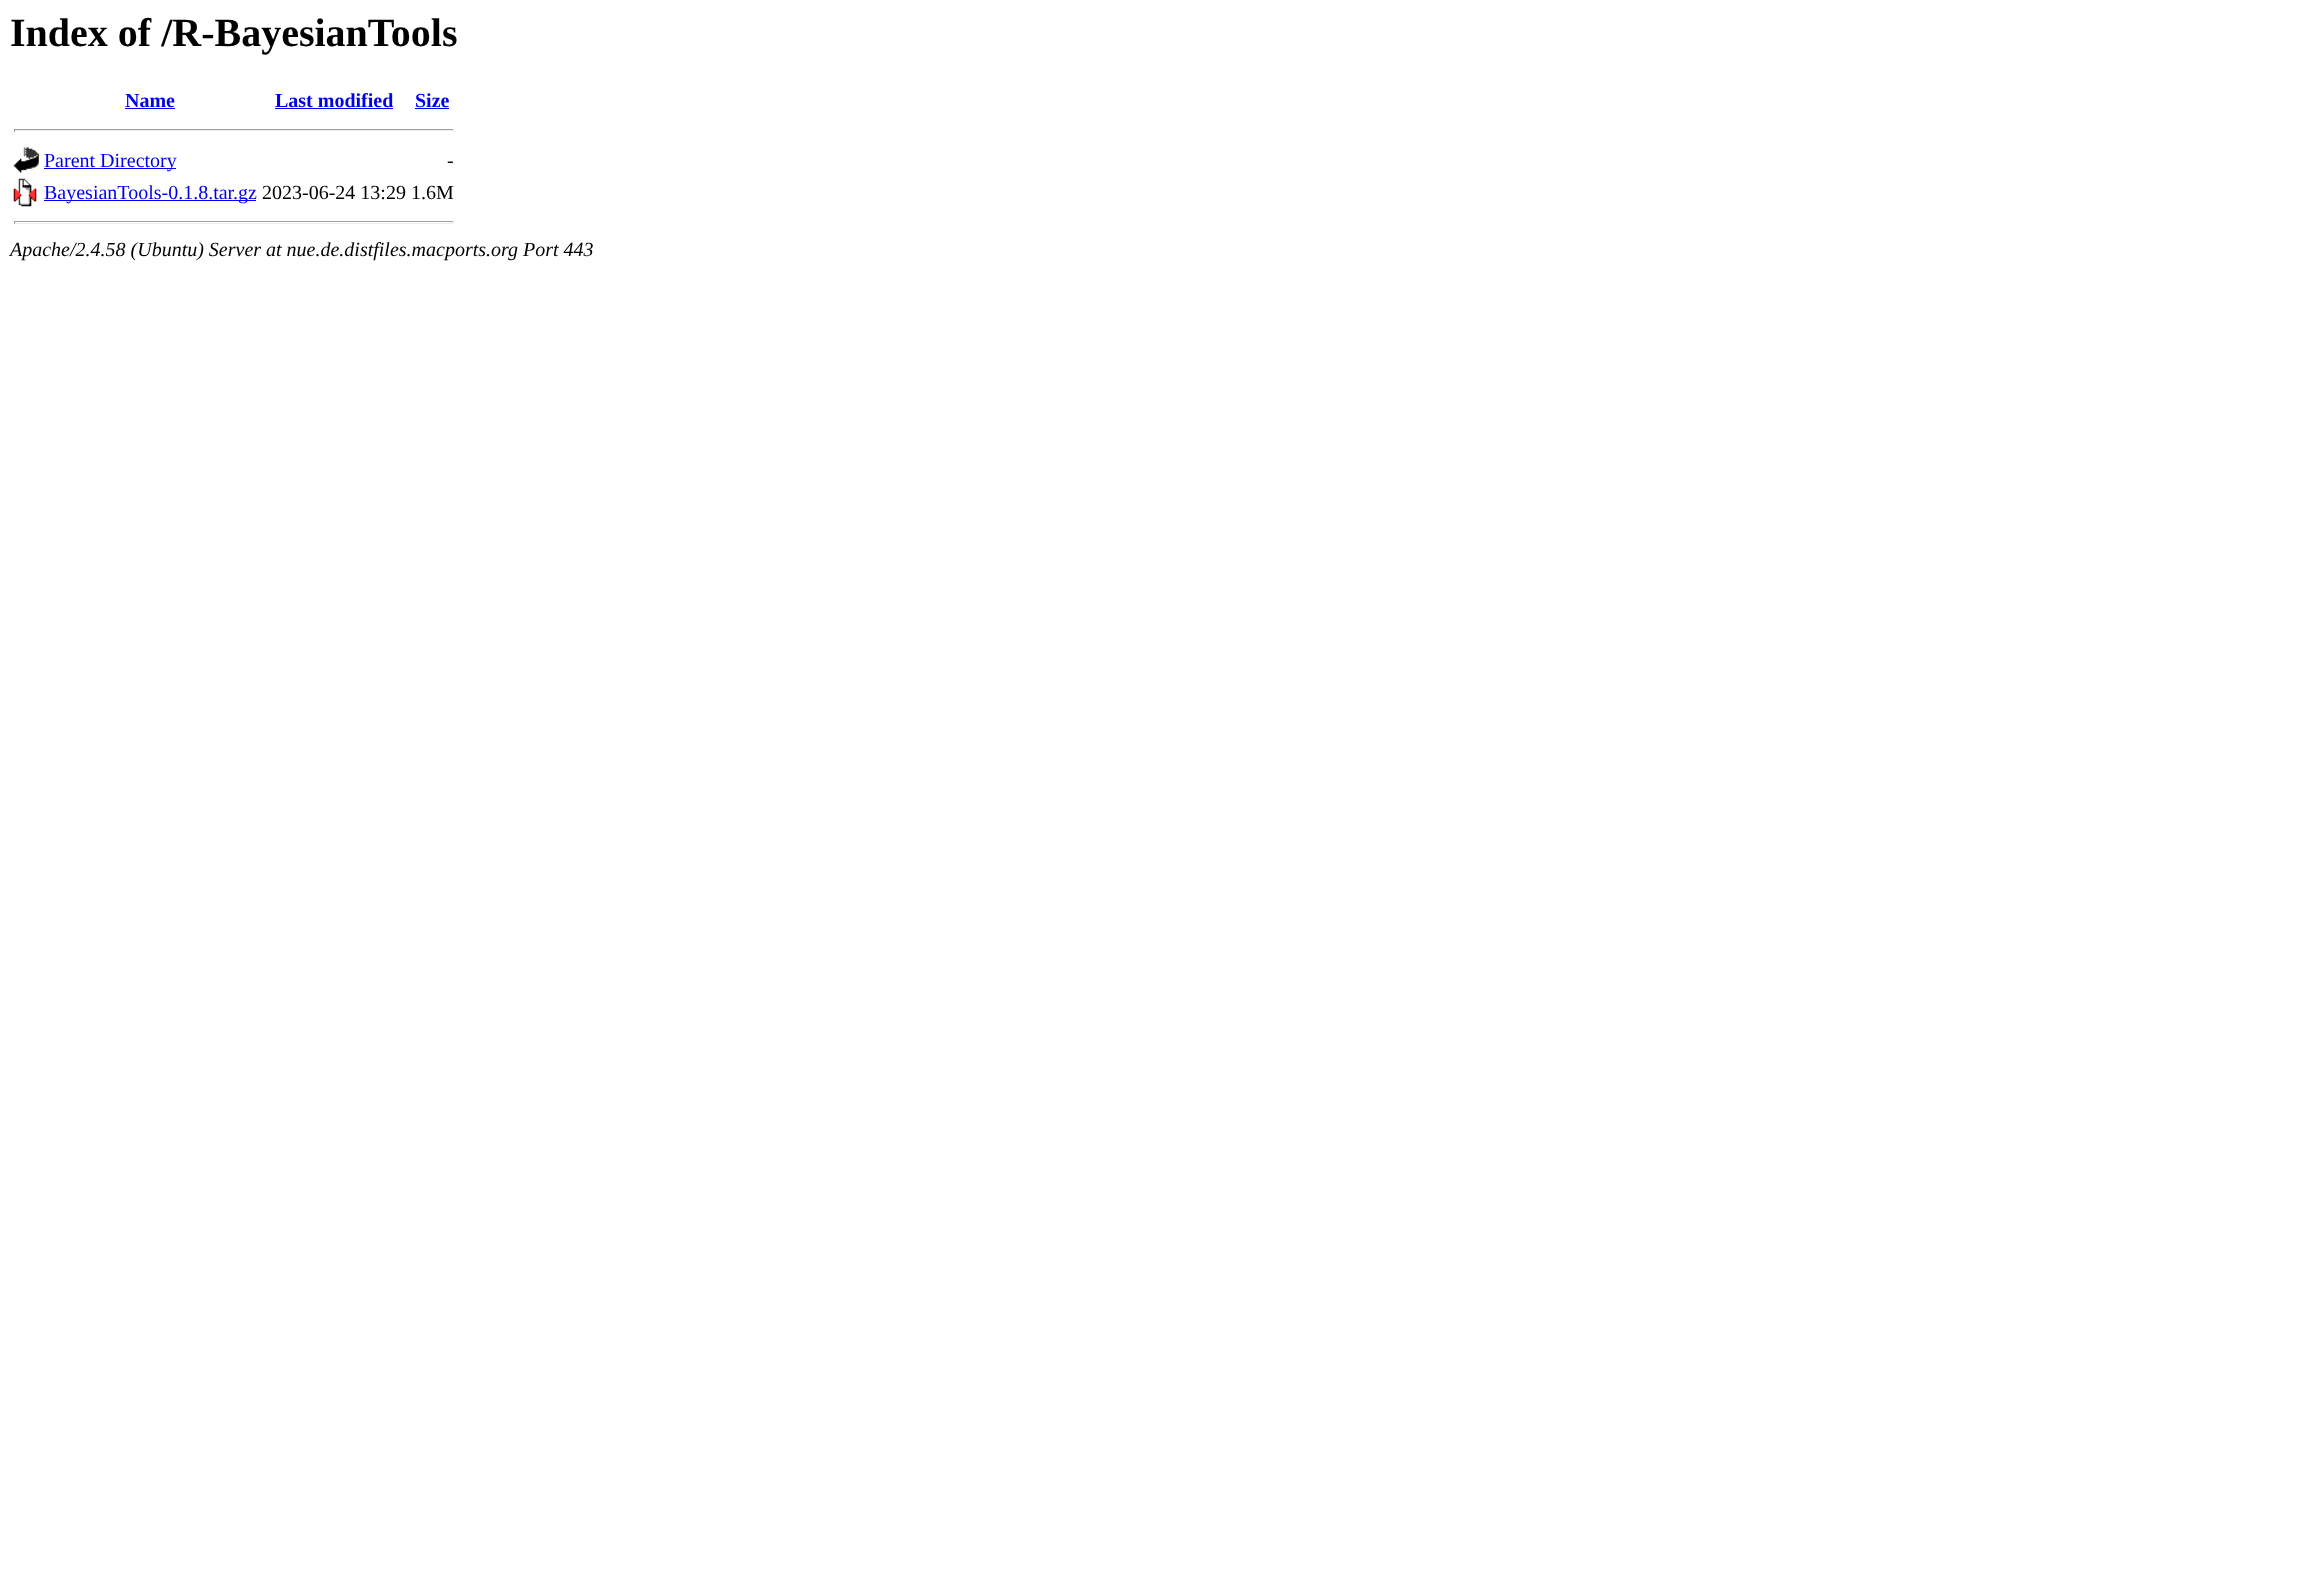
<svg xmlns="http://www.w3.org/2000/svg" width="2321" height="1594">
	<rect width="100%" height="100%" fill="#FFFFFF" />
	<text x="10" y="46" font-family="Liberation Serif" font-size="40" font-weight="700" fill="#000000">Index of /R-BayesianTools</text>
	<text x="125" y="107" font-family="Liberation Serif" font-size="20" font-weight="700" fill="#0000EE">Name</text>
	<rect x="125" y="108" width="50" height="1" fill="#0000EE" />
	<text x="275" y="107" font-family="Liberation Serif" font-size="20" font-weight="700" fill="#0000EE">Last modified</text>
	<rect x="275" y="108" width="118" height="1" fill="#0000EE" />
	<text x="415" y="107" font-family="Liberation Serif" font-size="20" font-weight="700" fill="#0000EE">Size</text>
	<rect x="415" y="108" width="34" height="1" fill="#0000EE" />
	<rect x="14" y="129" width="440" height="1" fill="#9F9F9F" />
	<rect x="453" y="129" width="1" height="3" fill="#EEEEEE" />
	<rect x="14" y="130" width="440" height="1" fill="#EEEEEE" />
	<rect x="14" y="129" width="1" height="3" fill="#9F9F9F" />
	<image x="13" y="147" width="26" height="26" href="assets/img1.png" />
	<rect x="44" y="168" width="132" height="1" fill="#0000EE" />
	<text x="44" y="167" font-family="Liberation Serif" font-size="20" fill="#0000EE">Parent Directory</text>
	<text x="447" y="167" font-family="Liberation Serif" font-size="20" fill="#000000">-</text>
	<image x="13" y="178" width="24" height="29" href="assets/img2.png" />
	<rect x="44" y="200" width="212" height="1" fill="#0000EE" />
	<text x="44" y="199" font-family="Liberation Serif" font-size="20" fill="#0000EE">BayesianTools-0.1.8.tar.gz</text>
	<text x="262" y="199" font-family="Liberation Serif" font-size="20" fill="#000000">2023-06-24 13:29 1.6M</text>
	<rect x="14" y="221" width="440" height="1" fill="#9F9F9F" />
	<rect x="453" y="221" width="1" height="3" fill="#EEEEEE" />
	<rect x="14" y="223" width="440" height="1" fill="#EEEEEE" />
	<rect x="14" y="221" width="1" height="3" fill="#9F9F9F" />
	<text x="10" y="256" font-family="Liberation Serif" font-size="20" font-style="italic" fill="#000000">Apache/2.4.58 (Ubuntu) Server at nue.de.distfiles.macports.org Port 443</text>
</svg>
